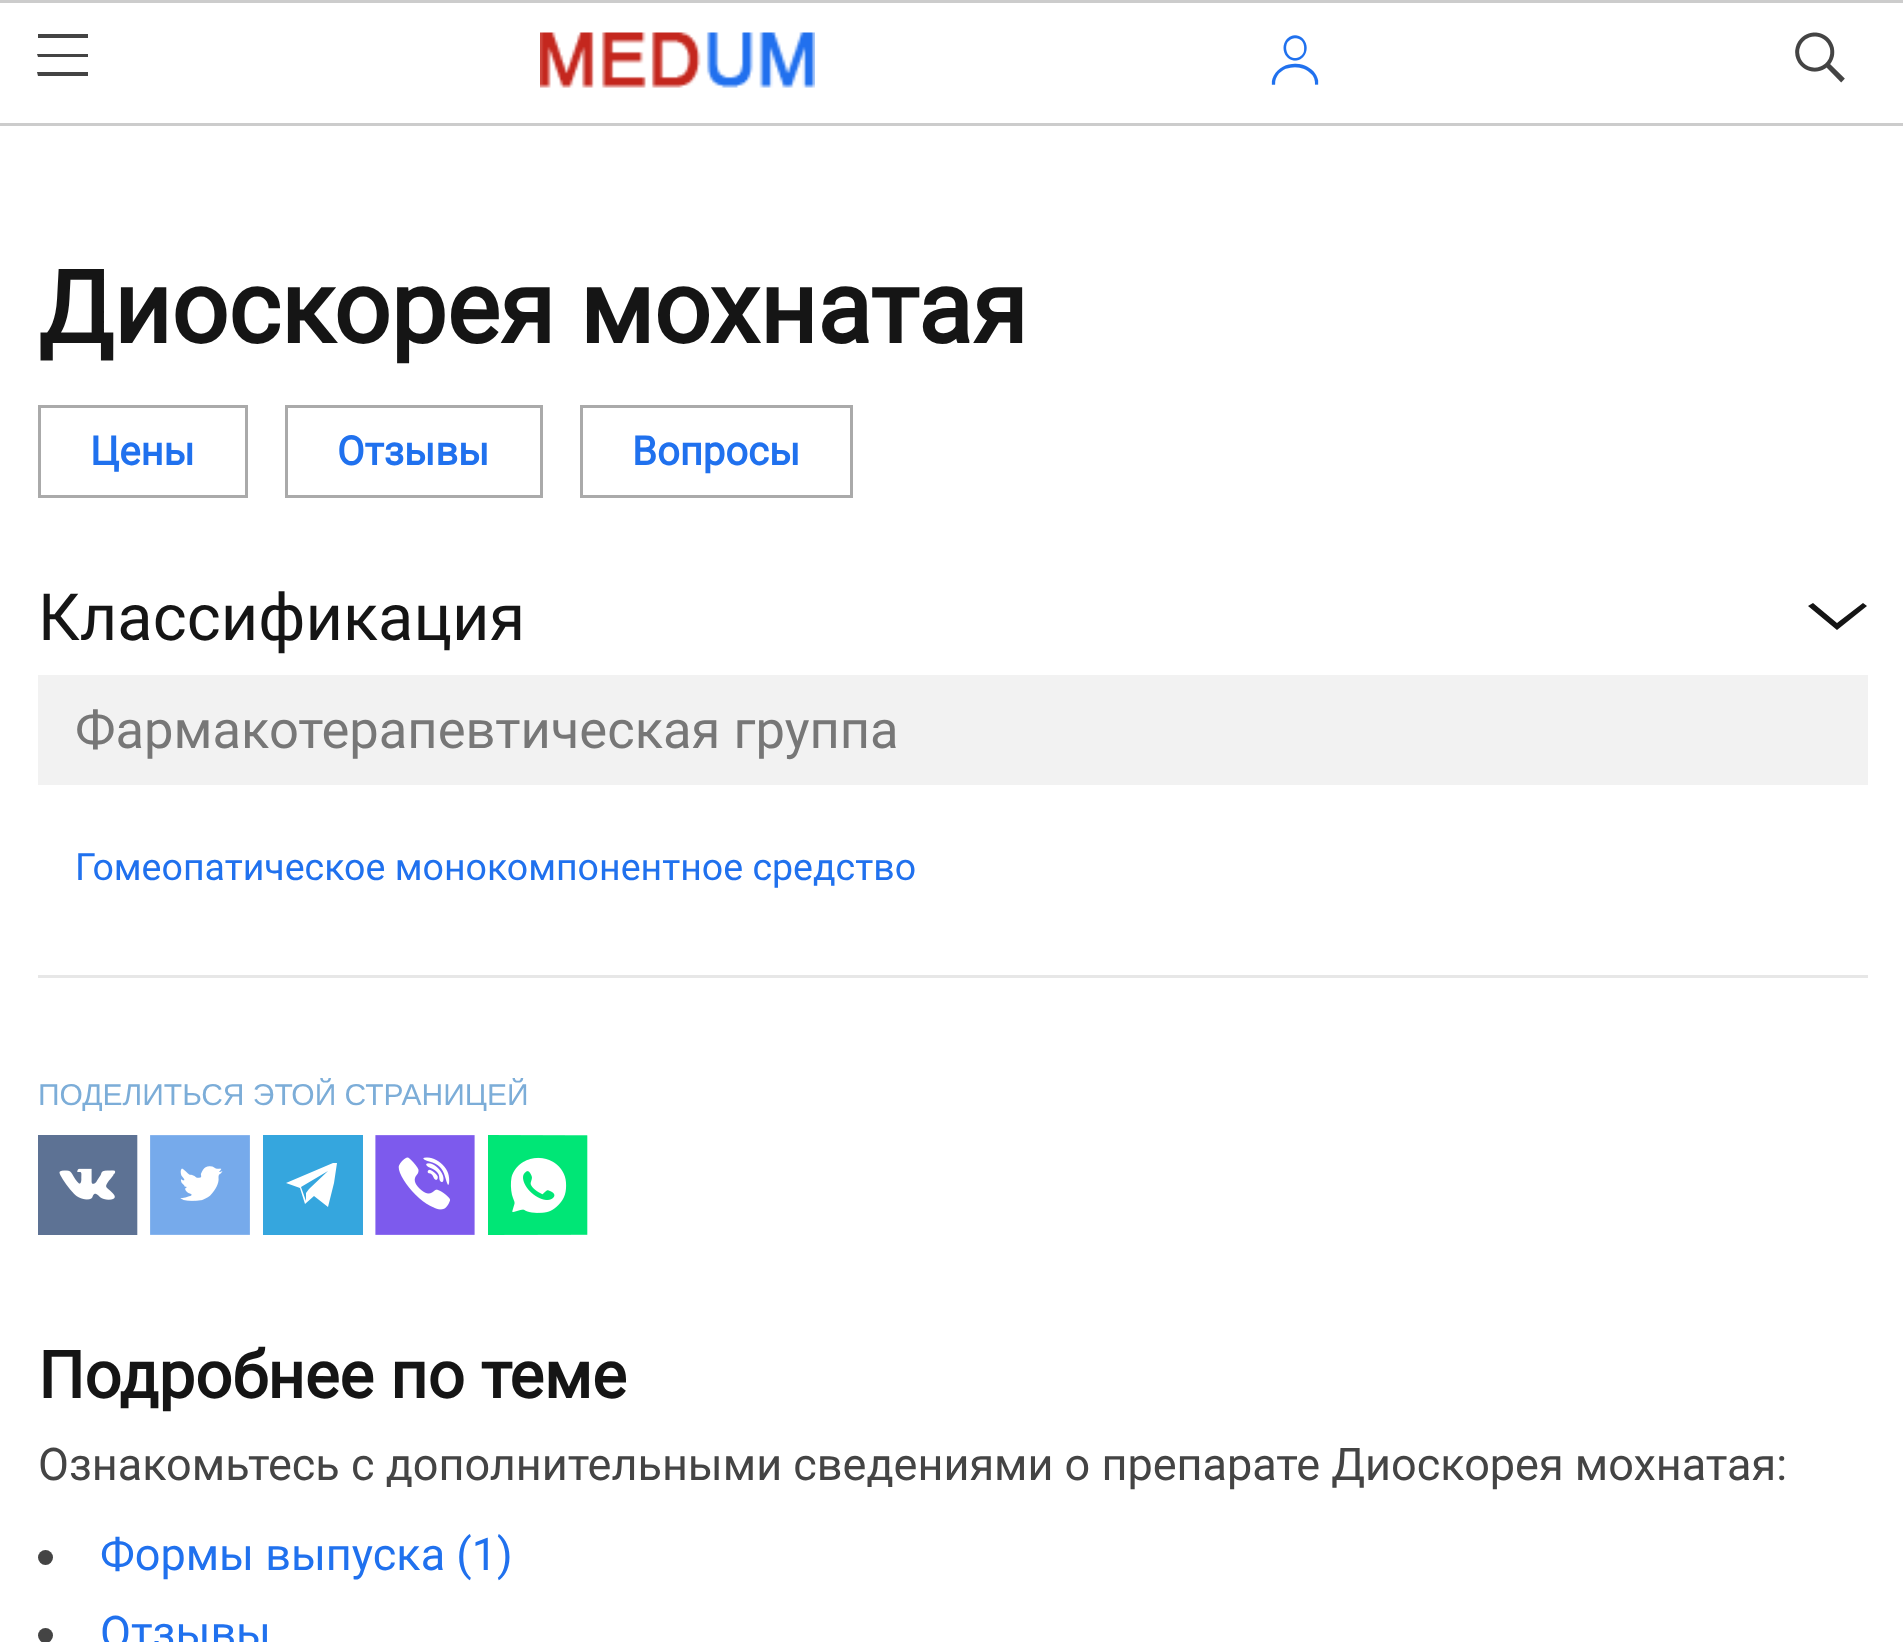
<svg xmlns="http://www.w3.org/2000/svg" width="1903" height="1642">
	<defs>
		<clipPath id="clip1"><rect x="263" y="1130" width="100" height="113" /></clipPath>
	</defs>
	<rect width="100%" height="100%" fill="#FFFFFF" />
	<rect x="0" y="0" width="1903" height="3" fill="#CCCCCC" />
	<rect x="0" y="123" width="1903" height="3" fill="#CCCCCC" />
	<path d="M38 34V38H88V34ZM37 54L38 57H88V54ZM37 72L38 76H88V72Z" fill="#444444" />
	<image x="540" y="32" width="275" height="56" href="assets/img1.png" />
	<image x="1271" y="35" width="48" height="50" href="assets/img2.png" />
	<image x="1795" y="32" width="50" height="51" href="assets/img3.png" />
	<text x="38" y="343" font-family="Roboto" font-size="100" font-weight="700" fill="#151515">Диоскорея мохнатая</text>
	<rect x="39.5" y="406.5" width="207" height="90" fill="none" stroke="#AAAAAA" stroke-width="3" />
	<text x="90" y="465" font-family="Roboto" font-size="40" font-weight="700" fill="#2071EE">Цены</text>
	<rect x="286.5" y="406.5" width="255" height="90" fill="none" stroke="#AAAAAA" stroke-width="3" />
	<text x="337" y="465" font-family="Roboto" font-size="40" font-weight="700" fill="#2071EE">Отзывы</text>
	<rect x="581.5" y="406.5" width="270" height="90" fill="none" stroke="#AAAAAA" stroke-width="3" />
	<text x="632" y="465" font-family="Roboto" font-size="40" font-weight="700" fill="#2071EE">Вопросы</text>
	<rect x="38" y="975" width="1830" height="3" fill="#E7E7E7" />
	<text x="38" y="640" font-family="Roboto" font-size="65" fill="#151515">Классификация</text>
	<path d="M1813 603L1808 606L1837 630L1867 606L1863 603L1837 623Z" fill="#151515" />
	<rect x="38" y="675" width="1830" height="110" fill="#F2F2F2" />
	<text x="75" y="748" font-family="Roboto" font-size="52.5" fill="#777777">Фармакотерапевтическая группа</text>
	<text x="75" y="880" font-family="Roboto" font-size="37.5" fill="#2071EE">Гомеопатическое монокомпонентное средство</text>
	<text x="38" y="1105" font-family="Liberation Sans" font-size="30" fill="#7CADD8">ПОДЕЛИТЬСЯ ЭТОЙ СТРАНИЦЕЙ</text>
	<image x="38" y="1135" width="100" height="100" href="assets/img4.png" />
	<image x="150" y="1135" width="100" height="100" href="assets/img5.png" />
	<g clip-path="url(#clip1)">
		<path d="M262 1135V1235H363V1135ZM337 1163L334 1183L328 1207L314 1196L305 1204L300 1188L286 1183L333 1163ZM328 1171L301 1187L306 1201V1193L309 1189Z" fill="#35A6DE" />
	</g>
	<image x="375" y="1135" width="100" height="100" href="assets/img6.png" />
	<image x="488" y="1135" width="100" height="100" href="assets/img7.png" />
	<text x="38" y="1398" font-family="Roboto" font-size="65" font-weight="700" fill="#151515">Подробнее по теме</text>
	<text x="38" y="1480" font-family="Roboto" font-size="45" fill="#444444">Ознакомьтесь с дополнительными сведениями о препарате Диоскорея мохнатая:</text>
	<circle cx="45.5" cy="1557.5" r="7.5" fill="#444444" />
	<text x="100" y="1570" font-family="Roboto" font-size="45" fill="#2071EE">Формы выпуска (1)</text>
	<circle cx="45.5" cy="1635.5" r="7.5" fill="#444444" />
	<text x="100" y="1648" font-family="Roboto" font-size="45" fill="#2071EE">Отзывы</text>
</svg>
